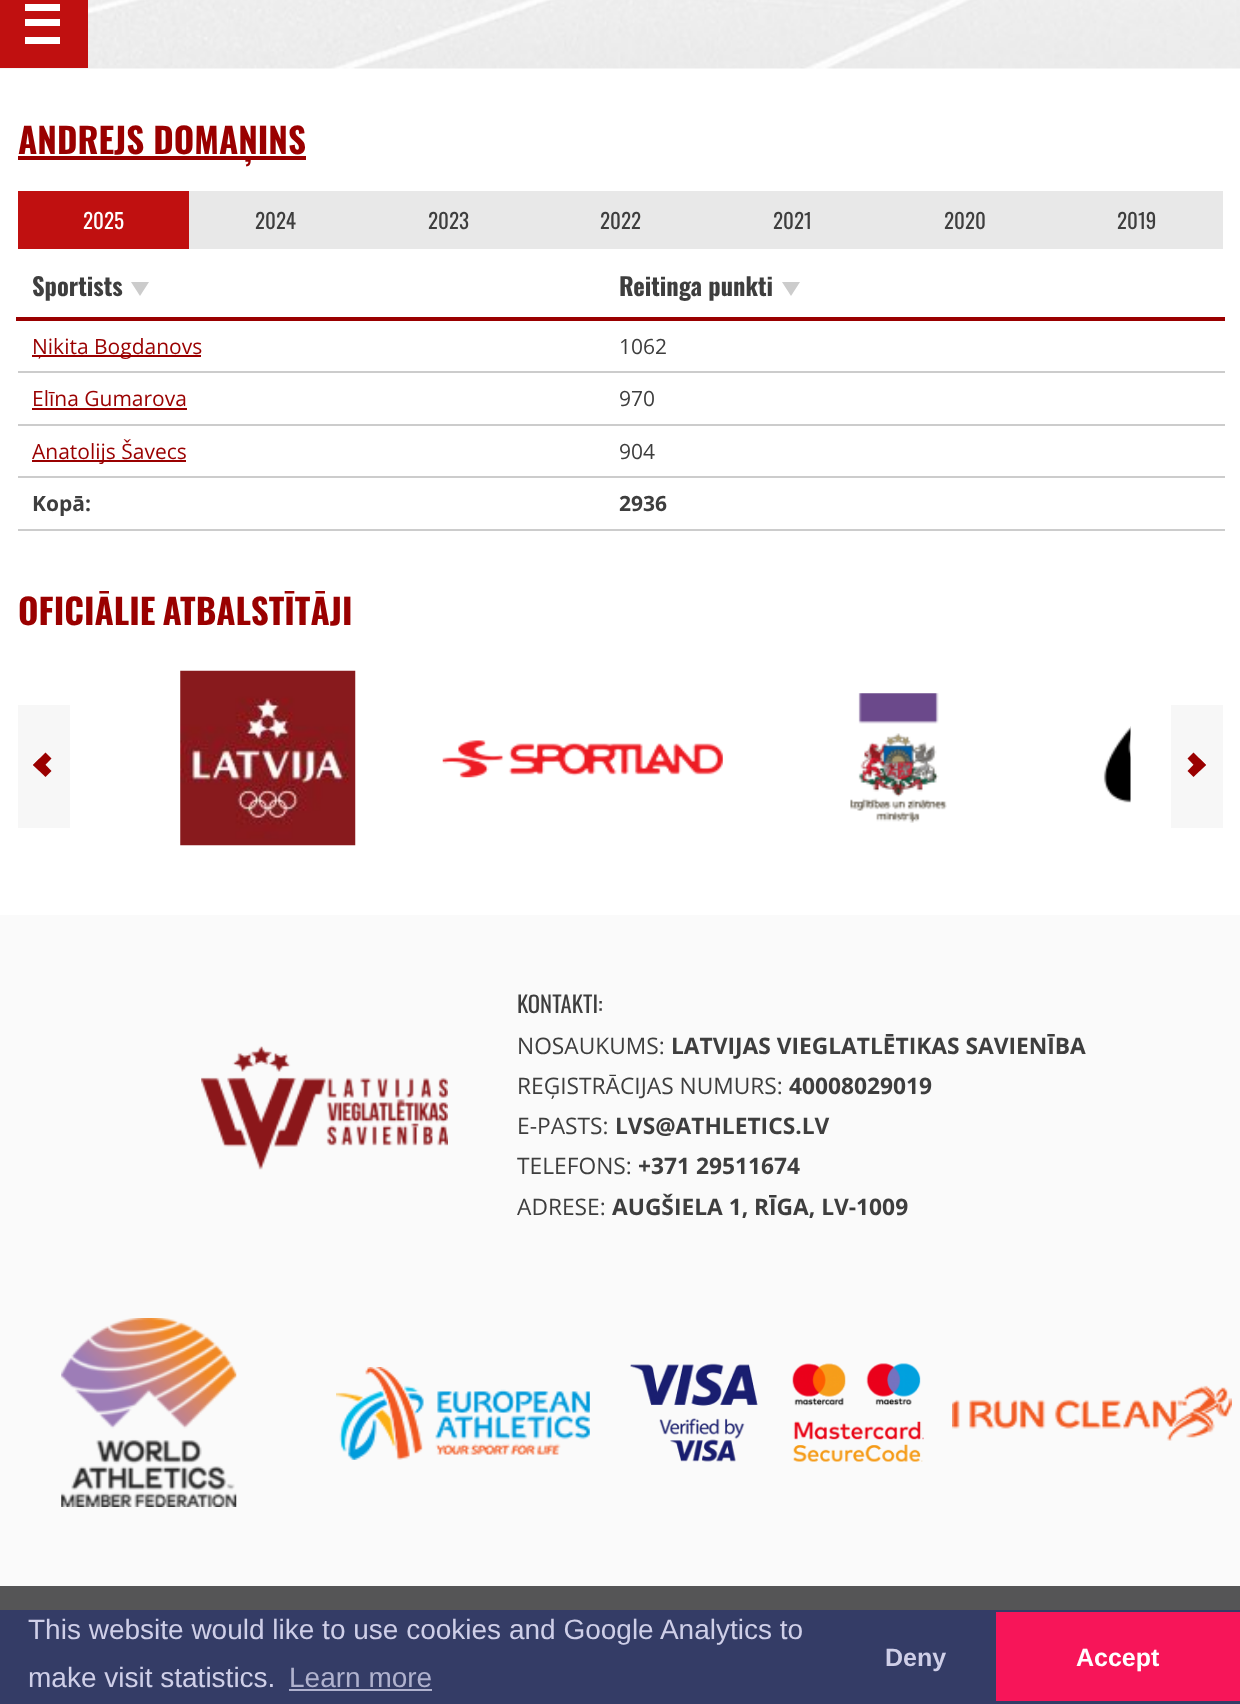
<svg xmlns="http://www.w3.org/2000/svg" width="1240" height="1704">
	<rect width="100%" height="100%" fill="#FFFFFF" />
	<image x="0" y="0" width="1240" height="69" href="assets/img1.png" />
	<rect x="0" y="0" width="88" height="68" fill="#C01010" />
	<rect x="25" y="4" width="35" height="7" fill="#FFFFFF" />
	<rect x="25" y="19" width="35" height="7" fill="#FFFFFF" />
	<rect x="25" y="37" width="35" height="7" fill="#FFFFFF" />
	<rect x="18" y="156" width="288" height="4" fill="#9A0000" />
	<text x="18" y="154" font-family="Oswald" font-size="35" font-weight="700" fill="#9A0000">ANDREJS DOMAŅINS</text>
	<rect x="18" y="191" width="171" height="58" fill="#C01010" />
	<text x="83" y="229" font-family="Oswald" font-size="21" fill="#FFFFFF">2025</text>
	<rect x="189" y="191" width="1034" height="58" fill="#E8E8E8" />
	<g font-family="Oswald" font-size="21" fill="#3E3E3E">
		<text x="255" y="229">2024</text>
		<text x="428" y="229">2023</text>
		<text x="600" y="229">2022</text>
		<text x="773" y="229">2021</text>
		<text x="944" y="229">2020</text>
		<text x="1117" y="229">2019</text>
	</g>
	<text x="32" y="296" font-family="Oswald" font-size="24.5" font-weight="700" fill="#3E3E3E">Sportists</text>
	<path d="M131 282H149L140 296Z" fill="#CCCCCC" />
	<rect x="16" y="317" width="1209" height="4" fill="#9A0000" />
	<text x="619" y="296" font-family="Oswald" font-size="24.5" font-weight="700" fill="#3E3E3E">Reitinga punkti</text>
	<path d="M782 282H800L791 296Z" fill="#CCCCCC" />
	<rect x="32" y="355" width="169" height="2" fill="#9A0000" />
	<text x="32" y="354" font-family="Open Sans" font-size="21" fill="#9A0000">Ņikita Bogdanovs</text>
	<rect x="18" y="371" width="1207" height="2" fill="#CCCCCC" />
	<text x="619" y="354" font-family="Open Sans" font-size="21" fill="#3E3E3E">1062</text>
	<text x="32" y="406" font-family="Open Sans" font-size="21" fill="#9A0000">Elīna Gumarova</text>
	<rect x="32" y="408" width="155" height="2" fill="#9A0000" />
	<rect x="18" y="424" width="1207" height="2" fill="#CCCCCC" />
	<text x="619" y="406" font-family="Open Sans" font-size="21" fill="#3E3E3E">970</text>
	<rect x="32" y="460" width="154" height="2" fill="#9A0000" />
	<text x="32" y="459" font-family="Open Sans" font-size="21" fill="#9A0000">Anatolijs Šavecs</text>
	<rect x="18" y="476" width="1207" height="2" fill="#CCCCCC" />
	<text x="619" y="459" font-family="Open Sans" font-size="21" fill="#3E3E3E">904</text>
	<text x="32" y="511" font-family="Open Sans" font-size="21" font-weight="700" fill="#3E3E3E">Kopā:</text>
	<rect x="18" y="529" width="1207" height="2" fill="#CCCCCC" />
	<text x="619" y="511" font-family="Open Sans" font-size="21" font-weight="700" fill="#3E3E3E">2936</text>
	<text x="18" y="625" word-spacing="-2" font-family="Oswald" font-size="35" font-weight="700" fill="#9A0000">OFICIĀLIE ATBALSTĪTĀJI</text>
	<rect x="18" y="705" width="52" height="123" fill="#F7F7F7" />
	<path d="M33 765L45.5 752.5L51.5 758.5L39.5 771Z" fill="#9A0000" />
	<path d="M33 765L39.5 758.5L51.5 771L45.5 777Z" fill="#9A0000" />
	<image x="180" y="670" width="176" height="176" href="assets/img2.png" />
	<image x="442" y="740" width="281" height="38" href="assets/img3.png" />
	<image x="850" y="693" width="97" height="130" href="assets/img4.png" />
	<image x="1103" y="726" width="28" height="77" href="assets/img5.png" />
	<rect x="1171" y="705" width="52" height="123" fill="#F7F7F7" />
	<path d="M1206 765L1193.5 777L1187.5 771L1199.5 758.5Z" fill="#9A0000" />
	<path d="M1206 765L1199.5 771L1187.5 758.5L1193.5 752.5Z" fill="#9A0000" />
	<rect x="0" y="915" width="1240" height="671" fill="#FAFAFA" />
	<image x="201" y="1046" width="247" height="124" href="assets/img6.png" />
	<text x="517" y="1013" font-family="Oswald" font-size="22.75" fill="#3E3E3E">KONTAKTI:</text>
	<text x="517" y="1054" font-family="Open Sans" font-size="22.75" fill="#3E3E3E">NOSAUKUMS:</text>
	<text x="671" y="1054" font-family="Open Sans" font-size="22.75" font-weight="700" fill="#3E3E3E">LATVIJAS VIEGLATLĒTIKAS SAVIENĪBA</text>
	<text x="517" y="1094" font-family="Open Sans" font-size="22.75" fill="#3E3E3E">REĢISTRĀCIJAS NUMURS:</text>
	<text x="789" y="1094" font-family="Open Sans" font-size="22.75" font-weight="700" fill="#3E3E3E">40008029019</text>
	<text x="517" y="1134" font-family="Open Sans" font-size="22.75" fill="#3E3E3E">E-PASTS:</text>
	<text x="615" y="1134" font-family="Open Sans" font-size="22.75" font-weight="700" fill="#3E3E3E">LVS@ATHLETICS.LV</text>
	<text x="517" y="1174" font-family="Open Sans" font-size="22.75" fill="#3E3E3E">TELEFONS:</text>
	<text x="638" y="1174" font-family="Open Sans" font-size="22.75" font-weight="700" fill="#3E3E3E">+371 29511674</text>
	<text x="517" y="1215" font-family="Open Sans" font-size="22.75" fill="#3E3E3E">ADRESE:</text>
	<text x="612" y="1215" font-family="Open Sans" font-size="22.75" font-weight="700" fill="#3E3E3E">AUGŠIELA 1, RĪGA, LV-1009</text>
	<image x="61" y="1318" width="176" height="189" href="assets/img7.png" />
	<image x="336" y="1367" width="254" height="93" href="assets/img8.png" />
	<image x="630" y="1363" width="128" height="99" href="assets/img9.png" />
	<image x="792" y="1363" width="132" height="99" href="assets/img10.png" />
	<image x="952" y="1385" width="280" height="56" href="assets/img11.png" />
	<rect x="0" y="1586" width="1240" height="24" fill="#555556" />
	<rect x="0" y="1610" width="1240" height="94" fill="#343C66" />
	<g font-family="Liberation Sans" font-size="28" fill="#CFCFE8">
		<text x="28" y="1639">This website would like to use cookies and Google Analytics to</text>
		<text x="28" y="1687">make visit statistics.</text>
	</g>
	<text x="289" y="1687" font-family="Liberation Sans" font-size="28" fill="#B0B2CE">Learn more</text>
	<rect x="289" y="1689" width="143" height="2" fill="#B0B2CE" />
	<text x="885" y="1666" font-family="Liberation Sans" font-size="25" font-weight="700" fill="#CFCFE8">Deny</text>
	<rect x="996" y="1612" width="244" height="89" fill="#F71559" />
	<text x="1076" y="1666" font-family="Liberation Sans" font-size="25" font-weight="700" fill="#FFFFFF">Accept</text>
</svg>
